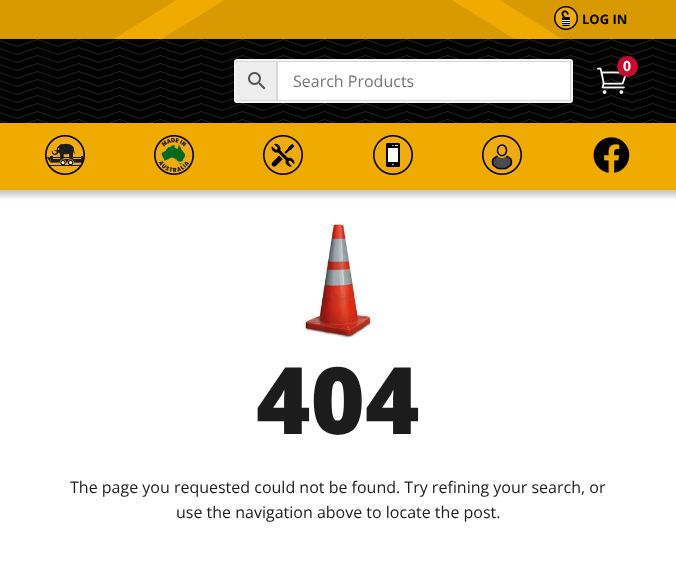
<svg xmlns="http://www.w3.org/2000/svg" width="676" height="575">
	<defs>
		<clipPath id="clip1"><rect x="0" y="0" width="676" height="39" /></clipPath>
		<clipPath id="clip2"><rect x="277" y="61" width="294" height="40" /></clipPath>
	</defs>
	<rect width="100%" height="100%" fill="#FFFFFF" />
	<rect x="113" y="0" width="450" height="39" fill="#F0AB00" />
	<g clip-path="url(#clip1)">
		<path d="M0-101H338L0 110ZM676-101H338L676 110ZM676 140L338-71L0 140Z" fill="#D89A00" />
	</g>
	<image x="554" y="6" width="24" height="24" href="assets/img1.png" />
	<text x="582" y="24" font-family="Open Sans" font-size="13" font-weight="700" fill="#000000">LOG IN</text>
	<rect x="-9" y="104" width="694" height="91" fill="#000000" fill-opacity="0.24" filter="blur(3px)" />
	<rect x="0" y="39" width="676" height="84" fill="#000000" />
	<image x="0" y="39" width="676" height="84" href="assets/img2.png" />
	<image x="597" y="67" width="29" height="27" href="assets/img3.png" />
	<circle cx="627.5" cy="66.5" r="10.5" fill="#C60C30" />
	<text x="623" y="71" font-family="Open Sans" font-size="14" font-weight="700" fill="#FFFFFF">0</text>
	<rect x="235" y="60" width="337" height="42" rx="2" fill="none" stroke="#F4F4F4" stroke-width="2" />
	<rect x="236" y="61" width="335" height="40" rx="1" fill="#FFFFFF" />
	<rect x="236" y="62" width="40" height="38" fill="#EDEDED" />
	<path d="M236 62H276V100H236V101H277V61H236Z" fill="#D8D8D8" />
	<image x="248" y="72" width="18" height="18" href="assets/img4.png" />
	<g clip-path="url(#clip2)">
		<path d="M277 61V101H571C573 99 571 96 571 94V62L570 61ZM278 62V100H570V62Z" fill="#D8D8D8" fill-rule="evenodd" />
	</g>
	<text x="293" y="87" font-family="Open Sans" font-size="16" fill="#757575">Search Products</text>
	<rect x="0" y="123" width="676" height="67" fill="#F0AB00" />
	<image x="45" y="135" width="40" height="40" href="assets/img5.png" />
	<image x="154" y="135" width="40" height="40" href="assets/img6.png" />
	<image x="263" y="135" width="40" height="40" href="assets/img7.png" />
	<image x="373" y="135" width="40" height="40" href="assets/img8.png" />
	<image x="482" y="135" width="40" height="40" href="assets/img9.png" />
	<image x="593" y="137" width="37" height="36" href="assets/img10.png" />
	<image x="302" y="220" width="72" height="118" href="assets/img11.png" />
	<text x="256" y="434" font-family="Open Sans" font-size="93" font-weight="800" fill="#1C1C1C">404</text>
	<g font-family="Open Sans" font-size="16" fill="#1C1C1C">
		<text x="70" y="493">The page you requested could not be found. Try refining your search, or</text>
		<text x="176" y="518">use the navigation above to locate the post.</text>
	</g>
</svg>
